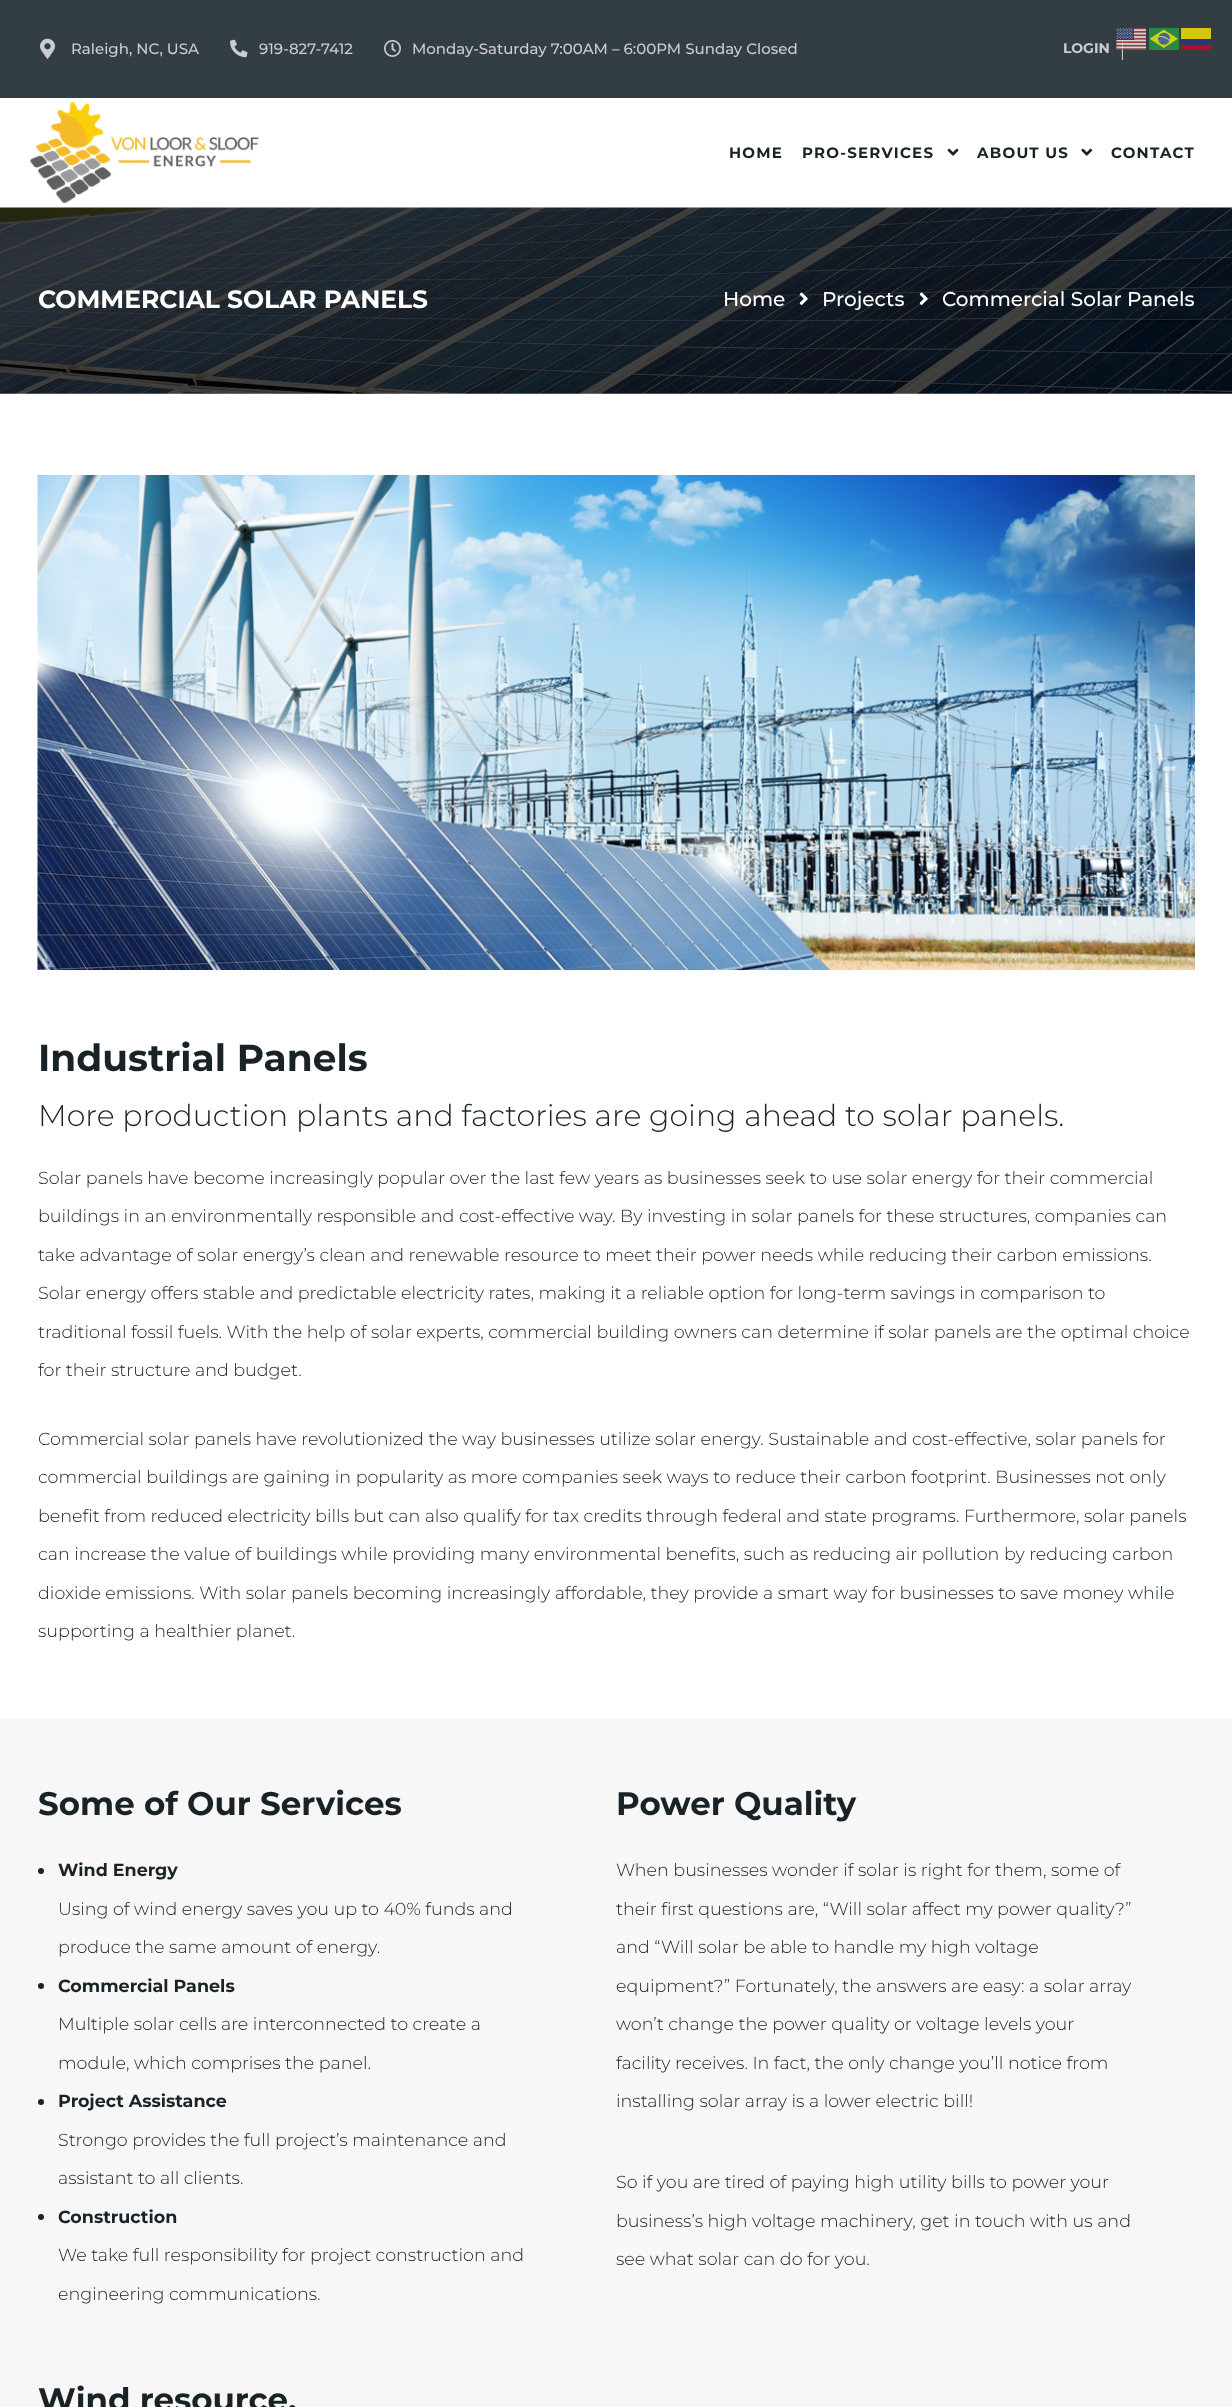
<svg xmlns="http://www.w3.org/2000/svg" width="1232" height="2407">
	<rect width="100%" height="100%" fill="#FFFFFF" />
	<rect x="0" y="0" width="1232" height="98" fill="#333E44" />
	<text x="1120" y="57" font-family="Roboto" font-size="22" font-weight="300" fill="#CCCCCC">|</text>
	<image x="1116" y="28" width="30" height="22" href="assets/img1.png" />
	<image x="1149" y="28" width="30" height="22" href="assets/img2.png" />
	<rect x="1181" y="28" width="30" height="22" fill="#FFE800" fill-opacity="0.8" />
	<rect x="1181" y="39" width="30" height="11" fill="#00148E" fill-opacity="0.8" />
	<rect x="1181" y="45" width="30" height="5" fill="#DA0010" fill-opacity="0.8" />
	<image x="40" y="38" width="15" height="21" href="assets/img3.png" />
	<text x="71" y="54" font-family="Montserrat" font-size="15" font-weight="500" fill="#CCCCCC">Raleigh, NC, USA</text>
	<image x="230" y="39" width="18" height="19" href="assets/img4.png" />
	<text x="259" y="54" font-family="Montserrat" font-size="15" font-weight="500" fill="#CCCCCC">919-827-7412</text>
	<image x="384" y="40" width="17" height="17" href="assets/img5.png" />
	<text x="412" y="54" font-family="Montserrat" font-size="15" font-weight="500" fill="#CCCCCC">Monday-Saturday 7:00AM – 6:00PM Sunday Closed</text>
	<text x="1063" y="53" font-family="Montserrat" font-size="14" font-weight="700" fill="#CCCCCC">LOGIN</text>
	<image x="30" y="101" width="229" height="103" href="assets/img6.png" />
	<g font-family="Montserrat" font-size="15" font-weight="700" letter-spacing="1.25" fill="#192227">
		<text x="729" y="158">HOME</text>
		<text x="802" y="158">PRO-SERVICES</text>
	</g>
	<image x="947" y="148" width="12" height="8" href="assets/img7.png" />
	<text x="977" y="158" font-family="Montserrat" font-size="15" font-weight="700" letter-spacing="1.25" fill="#192227">ABOUT US</text>
	<image x="1081" y="148" width="12" height="8" href="assets/img8.png" />
	<text x="1111" y="158" font-family="Montserrat" font-size="15" font-weight="700" letter-spacing="1.25" fill="#192227">CONTACT</text>
	<image x="0" y="207" width="1232" height="187" href="assets/img9.png" />
	<text x="38" y="308" font-family="Montserrat" font-size="25" font-weight="700" fill="#FFFFFF">COMMERCIAL SOLAR PANELS</text>
	<text x="723" y="306" font-family="Montserrat" font-size="20" font-weight="500" fill="#FFFFFF">Home</text>
	<image x="799" y="292" width="9" height="13" href="assets/img10.png" />
	<text x="822" y="306" font-family="Montserrat" font-size="20" font-weight="500" fill="#FFFFFF">Projects</text>
	<image x="919" y="292" width="9" height="13" href="assets/img11.png" />
	<text x="942" y="306" font-family="Montserrat" font-size="20" font-weight="500" fill="#FFFFFF">Commercial Solar Panels</text>
	<image x="37" y="475" width="1158" height="495" href="assets/img12.png" />
	<text x="38" y="1071" font-family="Montserrat" font-size="37.5" font-weight="700" fill="#192227">Industrial Panels</text>
	<text x="38" y="1126" font-family="Montserrat" font-size="30" font-weight="300" fill="#192227">More production plants and factories are going ahead to solar panels.</text>
	<g font-family="Montserrat" font-size="17.5" font-weight="300" fill="#192227">
		<text x="38" y="1184">Solar panels have become increasingly popular over the last few years as businesses seek to use solar energy for their commercial</text>
		<text x="38" y="1222">buildings in an environmentally responsible and cost-effective way. By investing in solar panels for these structures, companies can</text>
		<text x="38" y="1261">take advantage of solar energy’s clean and renewable resource to meet their power needs while reducing their carbon emissions.</text>
		<text x="38" y="1299">Solar energy offers stable and predictable electricity rates, making it a reliable option for long-term savings in comparison to</text>
		<text x="38" y="1338">traditional fossil fuels. With the help of solar experts, commercial building owners can determine if solar panels are the optimal choice</text>
		<text x="38" y="1376">for their structure and budget.</text>
		<text x="38" y="1445">Commercial solar panels have revolutionized the way businesses utilize solar energy. Sustainable and cost-effective, solar panels for</text>
		<text x="38" y="1483">commercial buildings are gaining in popularity as more companies seek ways to reduce their carbon footprint. Businesses not only</text>
		<text x="38" y="1522">benefit from reduced electricity bills but can also qualify for tax credits through federal and state programs. Furthermore, solar panels</text>
		<text x="38" y="1560">can increase the value of buildings while providing many environmental benefits, such as reducing air pollution by reducing carbon</text>
		<text x="38" y="1599">dioxide emissions. With solar panels becoming increasingly affordable, they provide a smart way for businesses to save money while</text>
		<text x="38" y="1637">supporting a healthier planet.</text>
	</g>
	<rect x="0" y="1719" width="1232" height="688" fill="#F7F7F7" />
	<text x="38" y="1815" font-family="Montserrat" font-size="32.5" font-weight="700" fill="#192227">Some of Our Services</text>
	<circle cx="41" cy="1871" r="3" fill="#192227" />
	<text x="58" y="1876" font-family="Montserrat" font-size="17.5" font-weight="700" fill="#192227">Wind Energy</text>
	<g font-family="Montserrat" font-size="17.5" font-weight="300" fill="#192227">
		<text x="58" y="1915">Using of wind energy saves you up to 40% funds and</text>
		<text x="58" y="1953">produce the same amount of energy.</text>
	</g>
	<circle cx="41" cy="1986" r="3" fill="#192227" />
	<text x="58" y="1992" font-family="Montserrat" font-size="17.5" font-weight="700" fill="#192227">Commercial Panels</text>
	<g font-family="Montserrat" font-size="17.5" font-weight="300" fill="#192227">
		<text x="58" y="2030">Multiple solar cells are interconnected to create a</text>
		<text x="58" y="2069">module, which comprises the panel.</text>
	</g>
	<circle cx="41" cy="2102" r="3" fill="#192227" />
	<text x="58" y="2107" font-family="Montserrat" font-size="17.5" font-weight="700" fill="#192227">Project Assistance</text>
	<g font-family="Montserrat" font-size="17.5" font-weight="300" fill="#192227">
		<text x="58" y="2146">Strongo provides the full project’s maintenance and</text>
		<text x="58" y="2184">assistant to all clients.</text>
	</g>
	<circle cx="41" cy="2217" r="3" fill="#192227" />
	<text x="58" y="2223" font-family="Montserrat" font-size="17.5" font-weight="700" fill="#192227">Construction</text>
	<g font-family="Montserrat" font-size="17.5" font-weight="300" fill="#192227">
		<text x="58" y="2261">We take full responsibility for project construction and</text>
		<text x="58" y="2300">engineering communications.</text>
	</g>
	<text x="616" y="1815" font-family="Montserrat" font-size="32.5" font-weight="700" fill="#192227">Power Quality</text>
	<g font-family="Montserrat" font-size="17.5" font-weight="300" fill="#192227">
		<text x="616" y="1876">When businesses wonder if solar is right for them, some of</text>
		<text x="616" y="1915">their first questions are, “Will solar affect my power quality?”</text>
		<text x="616" y="1953">and “Will solar be able to handle my high voltage</text>
		<text x="616" y="1992">equipment?” Fortunately, the answers are easy: a solar array</text>
		<text x="616" y="2030">won’t change the power quality or voltage levels your</text>
		<text x="616" y="2069">facility receives. In fact, the only change you’ll notice from</text>
		<text x="616" y="2107">installing solar array is a lower electric bill!</text>
		<text x="616" y="2188">So if you are tired of paying high utility bills to power your</text>
		<text x="616" y="2227">business’s high voltage machinery, get in touch with us and</text>
		<text x="616" y="2265">see what solar can do for you.</text>
	</g>
	<text x="38" y="2411" font-family="Montserrat" font-size="32.5" font-weight="700" fill="#192227">Wind resource.</text>
</svg>
